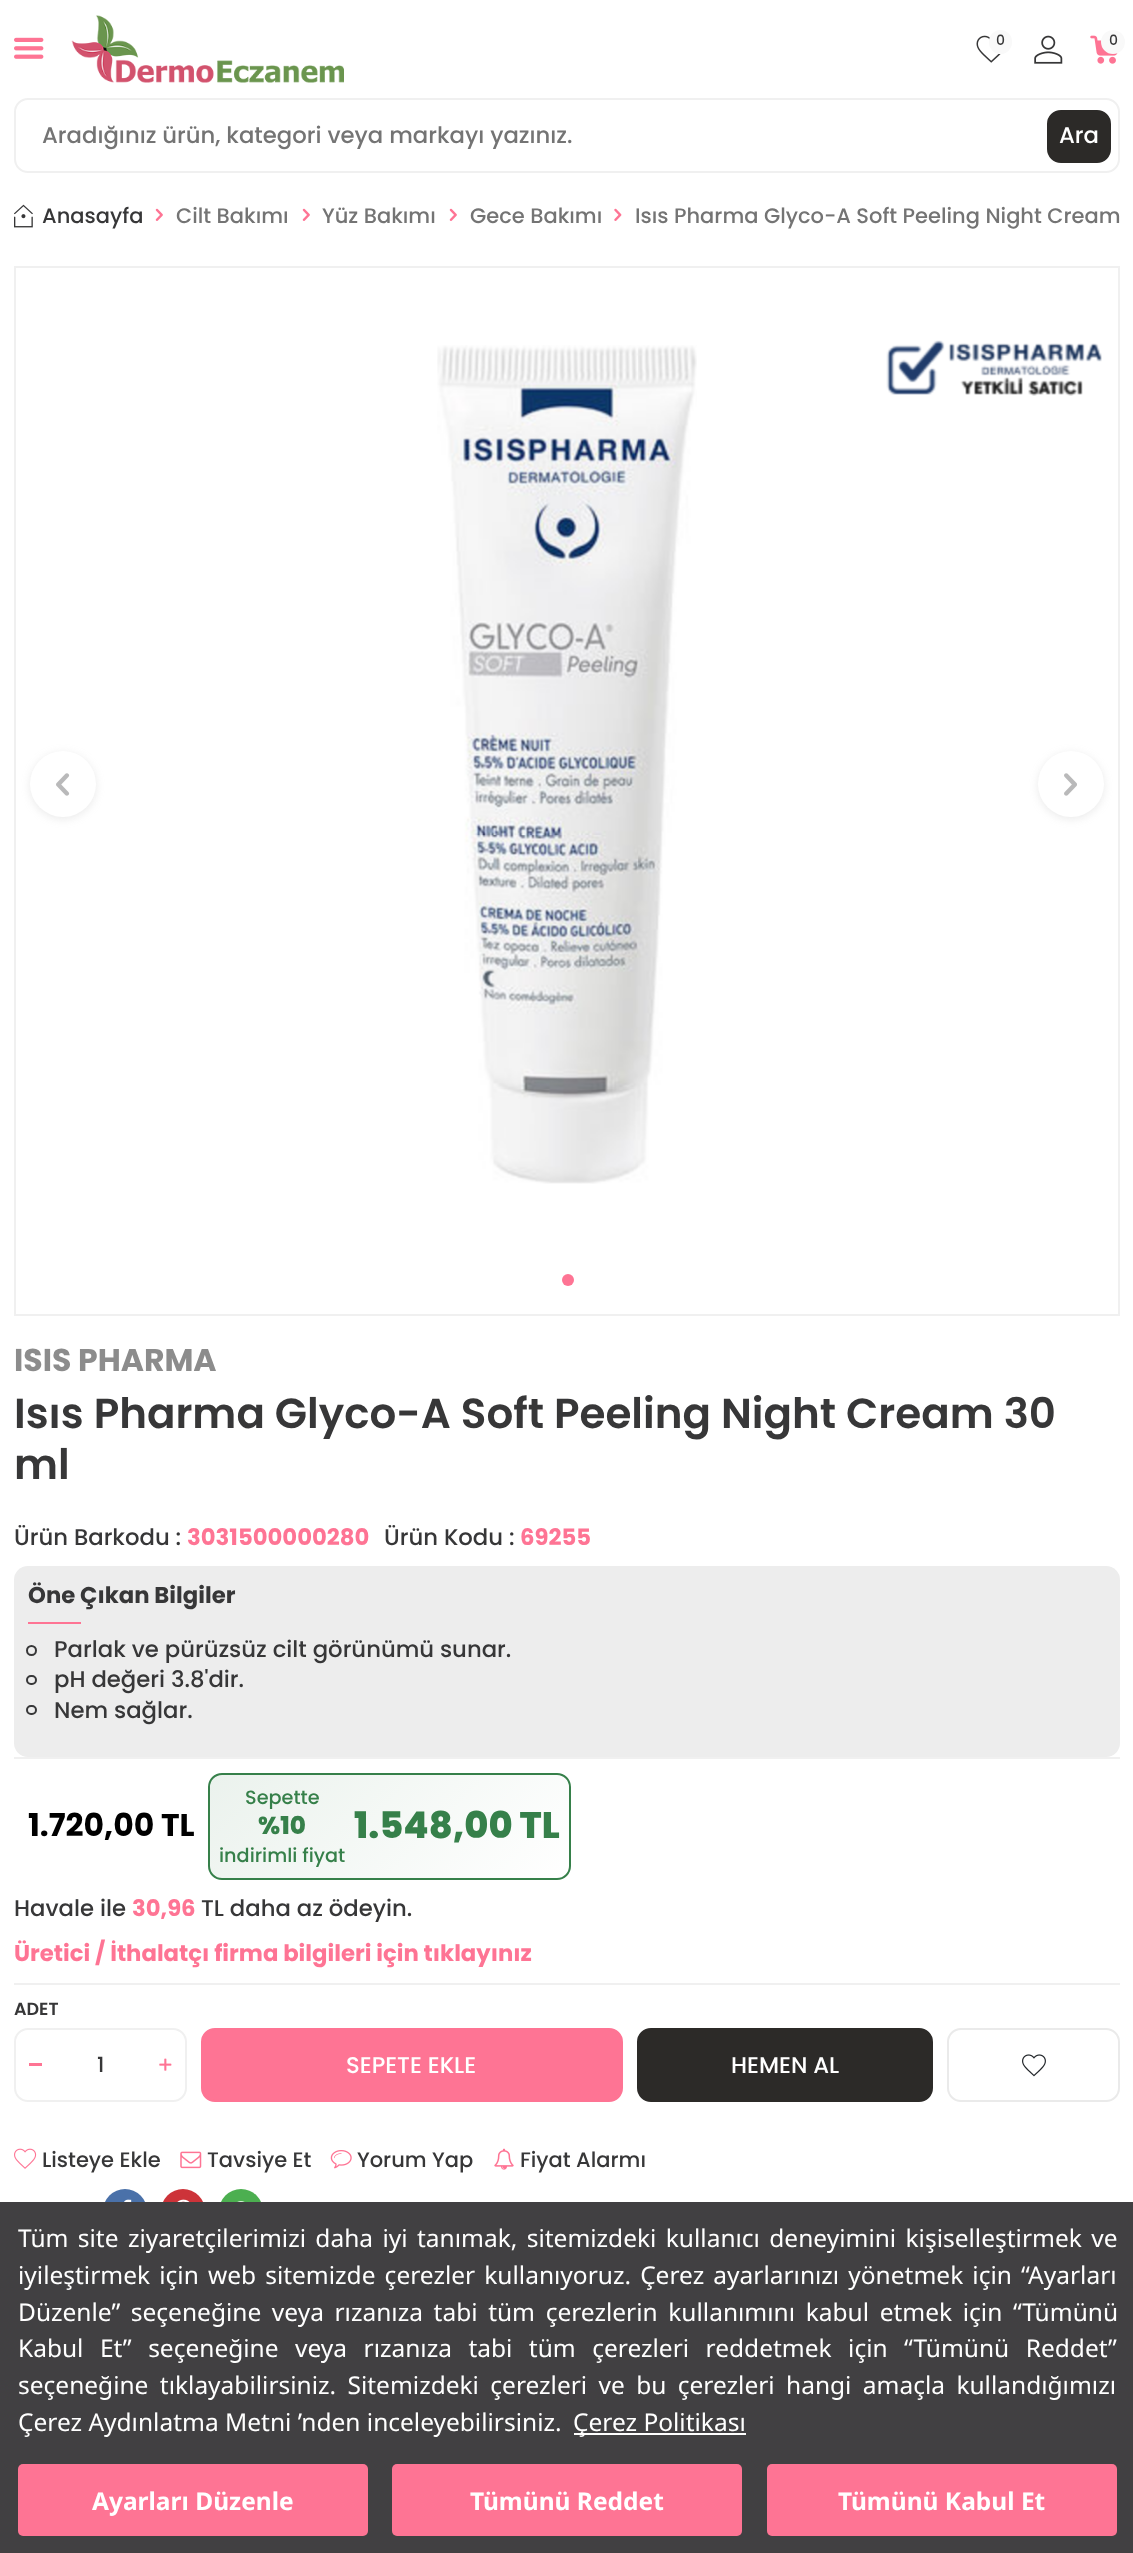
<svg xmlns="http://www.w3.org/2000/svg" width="1133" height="2553">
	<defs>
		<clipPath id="clip1"><rect x="208" y="1773" width="363" height="107" rx="14" /></clipPath>
		<linearGradient id="g1" gradientUnits="userSpaceOnUse" x1="274" y1="1711" x2="505" y2="1942"><stop offset="0" stop-color="#EBF2ED" /><stop offset="1" stop-color="#FFFFFF" /></linearGradient>
	</defs>
	<rect width="100%" height="100%" fill="#FFFFFF" />
	<image x="14" y="37" width="30" height="22" href="assets/img1.png" />
	<image x="71" y="15" width="273" height="68" href="assets/img2.png" />
	<image x="976" y="35" width="26" height="28" href="assets/img3.png" />
	<rect x="990" y="31" width="21" height="22" rx="10.5" fill="#F9F9F9" stroke="#F9F9F9" stroke-width="2" />
	<text x="996" y="45" font-family="Poppins" font-size="14" font-weight="500" fill="#373738">0</text>
	<image x="1034" y="35" width="29" height="29" href="assets/img4.png" />
	<image x="1090" y="35" width="28" height="29" href="assets/img5.png" />
	<circle cx="1113" cy="42" r="11" fill="#F9F9F9" stroke="#F9F9F9" stroke-width="2" />
	<text x="1109" y="45" font-family="Poppins" font-size="14" font-weight="500" fill="#373738">0</text>
	<rect x="15" y="99" width="1104" height="73" rx="13" fill="none" stroke="#F0F0F0" stroke-width="2" />
	<text x="42" y="143" font-family="Poppins" font-size="22.75" font-weight="500" fill="#747474">Aradığınız ürün, kategori veya markayı yazınız.</text>
	<rect x="1048" y="111" width="62" height="51" rx="13" fill="#2C2A28" stroke="#2C2A28" stroke-width="2" />
	<text x="1059" y="143" font-family="Poppins" font-size="22.75" font-weight="500" fill="#FFFFFF">Ara</text>
	<image x="14" y="204" width="19" height="24" href="assets/img6.png" />
	<text x="42" y="223" font-family="Poppins" font-size="21" font-weight="500" fill="#373738">Anasayfa</text>
	<image x="155" y="208" width="8" height="13" href="assets/img7.png" />
	<text x="176" y="223" font-family="Poppins" font-size="21" font-weight="500" fill="#747474">Cilt Bakımı</text>
	<image x="302" y="208" width="8" height="13" href="assets/img7.png" />
	<text x="322" y="223" font-family="Poppins" font-size="21" font-weight="500" fill="#747474">Yüz Bakımı</text>
	<image x="449" y="208" width="8" height="13" href="assets/img7.png" />
	<text x="470" y="223" font-family="Poppins" font-size="21" font-weight="500" fill="#747474">Gece Bakımı</text>
	<image x="614" y="208" width="8" height="13" href="assets/img8.png" />
	<text x="635" y="223" font-family="Poppins" font-size="21" font-weight="500" fill="#747474">Isıs Pharma Glyco-A Soft Peeling Night Cream</text>
	<rect x="15" y="267" width="1104" height="1048" fill="none" stroke="#F0F0F0" stroke-width="2" />
	<rect x="30" y="753" width="66" height="66" rx="33" fill="#A6A6A6" fill-opacity="0.24" filter="blur(4.5px)" />
	<circle cx="63" cy="784" r="33" fill="#FFFFFF" />
	<image x="56" y="773" width="14" height="23" href="assets/img9.png" />
	<image x="437" y="345" width="260" height="839" href="assets/img10.png" />
	<image x="886" y="340" width="216" height="56" href="assets/img11.png" />
	<rect x="1038" y="753" width="66" height="66" rx="33" fill="#A6A6A6" fill-opacity="0.24" filter="blur(4.5px)" />
	<circle cx="1071" cy="784" r="33" fill="#FFFFFF" />
	<image x="1064" y="773" width="13" height="23" href="assets/img12.png" />
	<circle cx="568" cy="1280" r="6" fill="#FE7494" />
	<text x="14" y="1371" font-family="Poppins" font-size="31.5" font-weight="700" fill="#8C8C8C">ISIS PHARMA</text>
	<g font-family="Poppins" font-size="42" font-weight="600" fill="#373738">
		<text x="14" y="1428">Isıs Pharma Glyco-A Soft Peeling Night Cream 30</text>
		<text x="14" y="1479">ml</text>
	</g>
	<text x="14" y="1545" font-family="Poppins" font-size="22.75" font-weight="500" fill="#373738">Ürün Barkodu :</text>
	<text x="187" y="1545" font-family="Poppins" font-size="22.75" font-weight="700" fill="#FE7494">3031500000280</text>
	<text x="384" y="1545" font-family="Poppins" font-size="22.75" font-weight="500" fill="#373738">Ürün Kodu :</text>
	<text x="520" y="1545" font-family="Poppins" font-size="22.75" font-weight="700" fill="#FE7494">69255</text>
	<rect x="14" y="1566" width="1106" height="191" rx="14" fill="#EDEDED" />
	<text x="28" y="1603" font-family="Poppins" font-size="22.75" font-weight="700" fill="#373738">Öne Çıkan Bilgiler</text>
	<rect x="28" y="1622" width="53" height="2" fill="#FE7494" />
	<circle cx="31.5" cy="1650.5" r="4.5" fill="none" stroke="#373738" stroke-width="2" />
	<text x="54" y="1657" font-family="Poppins" font-size="22.75" font-weight="500" fill="#373738">Parlak ve pürüzsüz cilt görünümü sunar.</text>
	<rect x="27" y="1676" width="9" height="8" rx="4" fill="none" stroke="#373738" stroke-width="2" />
	<text x="54" y="1687" font-family="Poppins" font-size="22.75" font-weight="500" fill="#373738">pH değeri 3.8'dir.</text>
	<rect x="27" y="1706" width="9" height="8" rx="4" fill="none" stroke="#373738" stroke-width="2" />
	<text x="54" y="1718" font-family="Poppins" font-size="22.75" font-weight="500" fill="#373738">Nem sağlar.</text>
	<rect x="14" y="1757" width="1106" height="2" fill="#F0F0F0" />
	<rect x="14" y="1983" width="1106" height="2" fill="#F0F0F0" />
	<text x="28" y="1836" font-family="Poppins" font-size="31.5" font-weight="700" fill="#000000">1.720,00 TL</text>
	<g clip-path="url(#clip1)">
		<rect x="210" y="1775" width="359" height="103" fill="url(#g1)" />
	</g>
	<rect x="209" y="1774" width="361" height="105" rx="13" fill="none" stroke="#36804A" stroke-width="2" />
	<text x="245" y="1804" font-family="Poppins" font-size="19.25" font-weight="500" fill="#36804A">Sepette</text>
	<text x="258" y="1834" font-family="Poppins" font-size="24.5" font-weight="800" fill="#36804A">%10</text>
	<text x="219" y="1862" font-family="Poppins" font-size="19.25" font-weight="500" fill="#36804A">indirimli fiyat</text>
	<text x="354" y="1838" font-family="Poppins" font-size="36.75" font-weight="800" fill="#36804A">1.548,00 TL</text>
	<text x="14" y="1916" font-family="Poppins" font-size="22.75" font-weight="500" fill="#373738">Havale ile</text>
	<text x="132" y="1916" font-family="Poppins" font-size="22.75" font-weight="700" fill="#FE7494">30,96</text>
	<text x="201" y="1916" font-family="Poppins" font-size="22.75" font-weight="500" fill="#373738">TL daha az ödeyin.</text>
	<text x="14" y="1961" font-family="Poppins" font-size="22.75" font-weight="700" fill="#FE7494">Üretici / İthalatçı firma bilgileri için tıklayınız</text>
	<text x="14" y="2015" font-family="Poppins" font-size="17.5" font-weight="600" fill="#373738">ADET</text>
	<rect x="15" y="2029" width="171" height="72" rx="13" fill="none" stroke="#F0F0F0" stroke-width="2" />
	<rect x="29" y="2063" width="13" height="3" fill="#FE7494" />
	<text x="97" y="2072" font-family="Poppins" font-size="21" font-weight="500" fill="#373738">1</text>
	<image x="159" y="2058" width="13" height="13" href="assets/img13.png" />
	<rect x="202" y="2029" width="420" height="72" rx="13" fill="#FE7494" stroke="#FE7494" stroke-width="2" />
	<text x="346" y="2073" font-family="Poppins" font-size="22.75" font-weight="500" fill="#FFFFFF">SEPETE EKLE</text>
	<rect x="638" y="2029" width="294" height="72" rx="13" fill="#2C2A28" stroke="#2C2A28" stroke-width="2" />
	<text x="731" y="2073" font-family="Poppins" font-size="22.75" font-weight="500" fill="#FFFFFF">HEMEN AL</text>
	<rect x="948" y="2029" width="171" height="72" rx="13" fill="none" stroke="#EAEAEA" stroke-width="2" />
	<image x="1022" y="2054" width="24" height="23" href="assets/img14.png" />
	<image x="14" y="2148" width="23" height="21" href="assets/img15.png" />
	<text x="42" y="2167" font-family="Poppins" font-size="21" font-weight="500" fill="#373738">Listeye Ekle</text>
	<image x="180" y="2151" width="22" height="18" href="assets/img16.png" />
	<text x="207" y="2167" font-family="Poppins" font-size="21" font-weight="500" fill="#373738">Tavsiye Et</text>
	<image x="330" y="2150" width="22" height="19" href="assets/img17.png" />
	<text x="357" y="2167" font-family="Poppins" font-size="21" font-weight="500" fill="#373738">Yorum Yap</text>
	<image x="494" y="2148" width="20" height="22" href="assets/img18.png" />
	<text x="520" y="2167" font-family="Poppins" font-size="21" font-weight="500" fill="#373738">Fiyat Alarmı</text>
	<circle cx="125" cy="2211" r="22" fill="#4A71A9" />
	<image x="124" y="2199" width="8" height="3" href="assets/img19.png" />
	<circle cx="183" cy="2211" r="22" fill="#CD3339" />
	<image x="177" y="2199" width="13" height="3" href="assets/img20.png" />
	<circle cx="241" cy="2211" r="22" fill="#4CAF50" />
	<image x="237" y="2201" width="8" height="1" href="assets/img21.png" />
	<rect x="0" y="2202" width="1133" height="351" fill="#414042" />
	<g font-family="Noto Sans" font-size="24.5" fill="#FFFFFF">
		<text x="18" y="2247" word-spacing="3">Tüm site ziyaretçilerimizi daha iyi tanımak, sitemizdeki kullanıcı deneyimini kişiselleştirmek ve</text>
		<text x="18" y="2284" word-spacing="2.75">iyileştirmek için web sitemizde çerezler kullanıyoruz. Çerez ayarlarınızı yönetmek için “Ayarları</text>
		<text x="18" y="2321" word-spacing="4.25">Düzenle” seçeneğine veya rızanıza tabi tüm çerezlerin kullanımını kabul etmek için “Tümünü</text>
		<text x="18" y="2357" word-spacing="10.1">Kabul Et” seçeneğine veya rızanıza tabi tüm çerezleri reddetmek için “Tümünü Reddet”</text>
		<text x="18" y="2394" word-spacing="5">seçeneğine tıklayabilirsiniz. Sitemizdeki çerezleri ve bu çerezleri hangi amaçla kullandığımızı</text>
		<text x="18" y="2431">Çerez Aydınlatma Metni ’nden inceleyebilirsiniz.</text>
	</g>
	<rect x="574" y="2433" width="172" height="2" fill="#FFFFFF" />
	<text x="573" y="2431" font-family="Noto Sans" font-size="24.5" fill="#FFFFFF">Çerez Politikası</text>
	<rect x="18" y="2464" width="350" height="72" rx="5" fill="#FE7494" />
	<text x="92" y="2510" font-family="Noto Sans" font-size="24.5" font-weight="700" fill="#FFFFFF">Ayarları Düzenle</text>
	<rect x="392" y="2464" width="350" height="72" rx="5" fill="#FE7494" />
	<text x="470" y="2510" font-family="Noto Sans" font-size="24.5" font-weight="700" fill="#FFFFFF">Tümünü Reddet</text>
	<rect x="767" y="2464" width="350" height="72" rx="5" fill="#FE7494" />
	<text x="838" y="2510" font-family="Noto Sans" font-size="24.5" font-weight="700" fill="#FFFFFF">Tümünü Kabul Et</text>
</svg>
